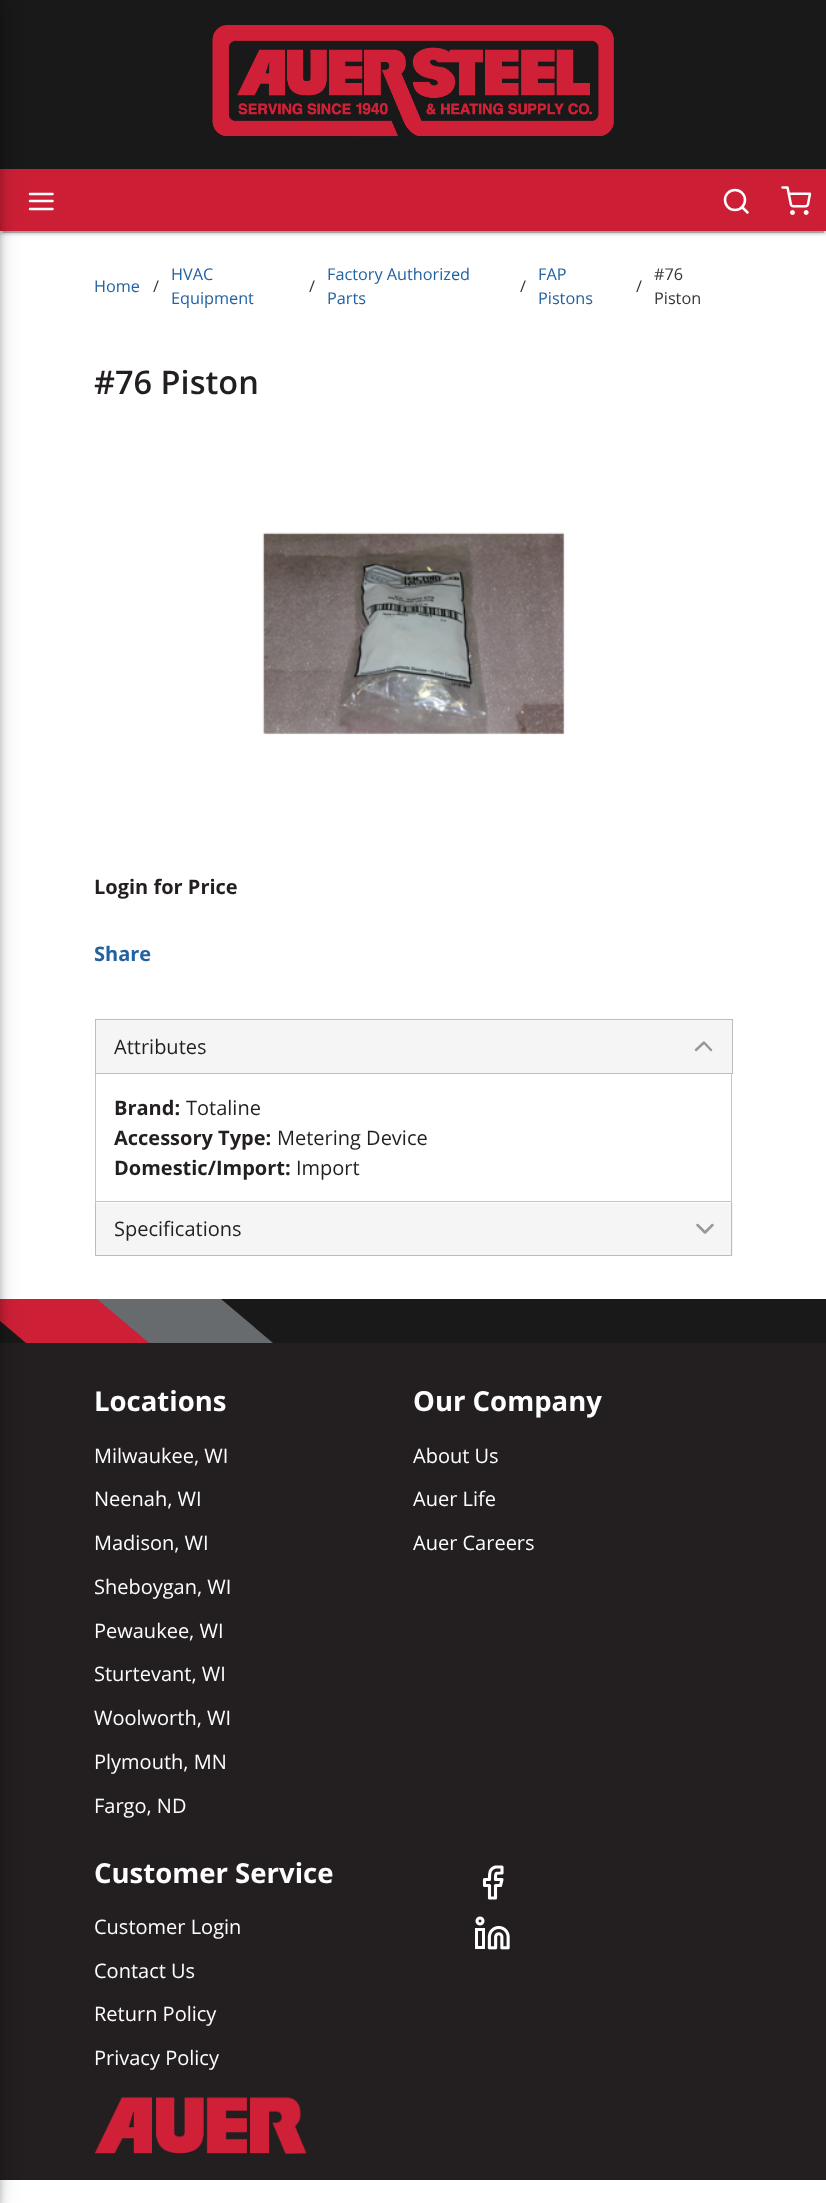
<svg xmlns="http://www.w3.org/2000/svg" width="826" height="2203">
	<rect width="100%" height="100%" fill="#FFFFFF" />
	<rect x="0" y="1" width="826" height="232" fill="#000000" fill-opacity="0.12" filter="blur(3px)" />
	<rect x="0" y="3" width="826" height="231" fill="#000000" fill-opacity="0.14" filter="blur(1px)" />
	<rect x="3" y="6" width="821" height="227" fill="#000000" fill-opacity="0.2" filter="blur(0.5px)" />
	<rect x="0" y="0" width="826" height="169" fill="#191919" />
	<rect x="0" y="169" width="826" height="62" fill="#CC1F36" />
	<path d="M30 201H52.5M30 194H52.5M30 209H52.5" fill="none" stroke="#FEFEFE" stroke-width="2.5" stroke-linecap="round" stroke-linejoin="round" />
	<rect x="0" y="1343" width="826" height="837" fill="#231F20" />
	<rect x="0" y="1299" width="826" height="44" fill="#191919" />
	<path d="M-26 1299H98L150 1343H26Z" fill="#CD2037" />
	<rect x="-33" y="1" width="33" height="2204" fill="#000000" fill-opacity="0.12" filter="blur(11px)" />
	<rect x="-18" y="8" width="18" height="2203" fill="#000000" fill-opacity="0.14" filter="blur(6px)" />
	<rect x="-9" y="5" width="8" height="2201" fill="#000000" fill-opacity="0.2" filter="blur(3px)" />
	<image x="212" y="25" width="402" height="112" href="assets/img1.png" />
	<circle cx="735" cy="200" r="10" fill="none" stroke="#FEFEFE" stroke-width="2.5" />
	<path d="M747.5 212.5L742 207" fill="none" stroke="#FEFEFE" stroke-width="2.5" stroke-linecap="round" stroke-linejoin="round" />
	<image x="781" y="186" width="30" height="29" href="assets/img2.png" />
	<text x="94" y="292" font-family="Open Sans" font-size="16.25" fill="#2162A1">Home</text>
	<text x="153" y="292" font-family="Open Sans" font-size="16.25" fill="#363636">/</text>
	<g font-family="Open Sans" font-size="16.25" fill="#2162A1">
		<text x="171" y="280">HVAC</text>
		<text x="171" y="304">Equipment</text>
	</g>
	<text x="309" y="292" font-family="Open Sans" font-size="16.25" fill="#363636">/</text>
	<g font-family="Open Sans" font-size="16.25" fill="#2162A1">
		<text x="327" y="280">Factory Authorized</text>
		<text x="327" y="304">Parts</text>
	</g>
	<text x="520" y="292" font-family="Open Sans" font-size="16.25" fill="#363636">/</text>
	<g font-family="Open Sans" font-size="16.25" fill="#2162A1">
		<text x="538" y="280">FAP</text>
		<text x="538" y="304">Pistons</text>
	</g>
	<g font-family="Open Sans" font-size="16.25" fill="#363636">
		<text x="636" y="292">/</text>
		<text x="654" y="280">#76</text>
		<text x="654" y="304">Piston</text>
	</g>
	<text x="94" y="394" font-family="Open Sans" font-size="32.5" font-weight="600" fill="#231F20">#76 Piston</text>
	<image x="262" y="532" width="304" height="203" href="assets/img3.png" />
	<text x="94" y="894" font-family="Open Sans" font-size="20" font-weight="700" fill="#231F20">Login for Price</text>
	<text x="94" y="961" font-family="Open Sans" font-size="20" font-weight="700" fill="#2162A1">Share</text>
	<rect x="95.5" y="1019.5" width="637" height="54" fill="#F6F5F5" stroke="#BDBDBD" />
	<text x="114" y="1054" font-family="Open Sans" font-size="20" fill="#231F20">Attributes</text>
	<path d="M711 1050L704 1042.5L696 1050" fill="none" stroke="#999898" stroke-width="2.5" stroke-linecap="round" stroke-linejoin="round" />
	<path d="M732 1074V1202L731 1201V1074Z" fill="#C4C4C4" />
	<path d="M732 1202H95L96 1201H731Z" fill="#000000" fill-opacity="0.23" />
	<path d="M95 1202V1074H96V1201Z" fill="#000000" fill-opacity="0.23" />
	<text x="114" y="1115" font-family="Open Sans" font-size="20" font-weight="700" fill="#231F20">Brand:</text>
	<text x="186" y="1115" font-family="Open Sans" font-size="20" fill="#231F20">Totaline</text>
	<text x="114" y="1145" font-family="Open Sans" font-size="20" font-weight="700" fill="#231F20">Accessory Type:</text>
	<text x="277" y="1145" font-family="Open Sans" font-size="20" fill="#231F20">Metering Device</text>
	<text x="114" y="1175" font-family="Open Sans" font-size="20" font-weight="700" fill="#231F20">Domestic/Import:</text>
	<text x="296" y="1175" font-family="Open Sans" font-size="20" fill="#231F20">Import</text>
	<rect x="95" y="1203" width="638" height="53" fill="#F6F5F5" />
	<path d="M732 1202V1256L731 1255V1202Z" fill="#000000" fill-opacity="0.23" />
	<path d="M732 1256H95L96 1255H731Z" fill="#000000" fill-opacity="0.23" />
	<path d="M95 1256V1202H96V1255Z" fill="#000000" fill-opacity="0.23" />
	<text x="114" y="1236" font-family="Open Sans" font-size="20" fill="#231F20">Specifications</text>
	<path d="M697.5 1225L705 1232.5L712.5 1225" fill="none" stroke="#999898" stroke-width="2.5" stroke-linecap="round" stroke-linejoin="round" />
	<path d="M97 1299H221L273 1343H149Z" fill="#676B6E" />
	<text x="94" y="1411" font-family="Open Sans" font-size="27.5" font-weight="700" fill="#FEFEFE">Locations</text>
	<g font-family="Open Sans" font-size="20" fill="#FEFEFE">
		<text x="94" y="1463">Milwaukee, WI</text>
		<text x="94" y="1506">Neenah, WI</text>
		<text x="94" y="1550">Madison, WI</text>
		<text x="94" y="1594">Sheboygan, WI</text>
		<text x="94" y="1638">Pewaukee, WI</text>
		<text x="94" y="1681">Sturtevant, WI</text>
		<text x="94" y="1725">Woolworth, WI</text>
		<text x="94" y="1769">Plymouth, MN</text>
		<text x="94" y="1813">Fargo, ND</text>
	</g>
	<text x="413" y="1411" font-family="Open Sans" font-size="27.5" font-weight="700" fill="#FEFEFE">Our Company</text>
	<g font-family="Open Sans" font-size="20" fill="#FEFEFE">
		<text x="413" y="1463">About Us</text>
		<text x="413" y="1506">Auer Life</text>
		<text x="413" y="1550">Auer Careers</text>
	</g>
	<text x="94" y="1883" font-family="Open Sans" font-size="27.5" font-weight="700" fill="#FEFEFE">Customer Service</text>
	<g font-family="Open Sans" font-size="20" fill="#FEFEFE">
		<text x="94" y="1934">Customer Login</text>
		<text x="94" y="1978">Contact Us</text>
		<text x="94" y="2021">Return Policy</text>
		<text x="94" y="2065">Privacy Policy</text>
	</g>
	<path d="M502 1867H495.5C489 1868.5 489.5 1874 489.5 1879.5H484.5V1885.5H489.5V1898H495.5V1885.5H500.5L502 1879.5H495.5C495.5 1872.5 495 1873 502 1873Z" fill="none" stroke="#FFFFFF" stroke-width="3.1" stroke-linecap="round" stroke-linejoin="round" />
	<image x="475" y="1916" width="35" height="34" href="assets/img4.png" />
	<image x="95" y="2097" width="212" height="57" href="assets/img5.png" />
</svg>
